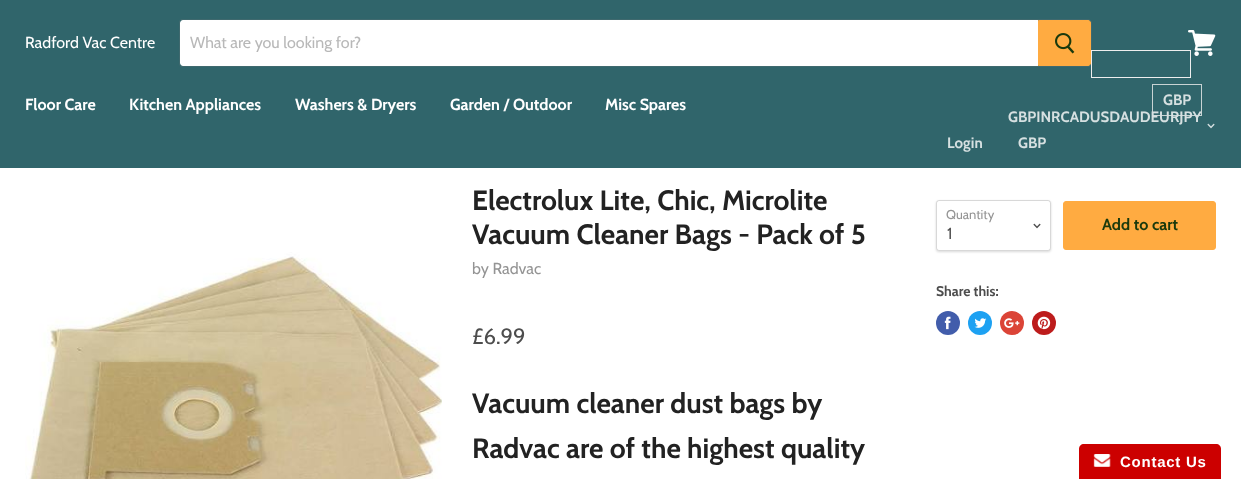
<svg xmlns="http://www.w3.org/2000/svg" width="1241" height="479">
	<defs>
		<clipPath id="clip1"><path d="M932 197H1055V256H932ZM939 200H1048C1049.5 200 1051 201.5 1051 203V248C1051 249.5 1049.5 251 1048 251H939C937.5 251 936 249.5 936 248V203C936 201.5 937.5 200 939 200Z" clip-rule="evenodd" /></clipPath>
	</defs>
	<rect width="100%" height="100%" fill="#FFFFFF" />
	<rect x="0" y="0" width="1241" height="168" fill="#30656B" />
	<text x="25" y="48" font-family="Cabin" font-size="16" fill="#FFFFFF">Radford Vac Centre</text>
	<path d="M182 19.5H1088C1090 19.5 1091.5 21 1091.5 23V63C1091.5 65 1090 66.5 1088 66.5H182C180.5 66.5 179.5 65.5 179.5 64V22C179.5 20.5 180.5 19.5 182 19.5Z" fill="none" stroke="#7F7F7F" stroke-opacity="0.2" />
	<path d="M183 20H1038V66H183C181.5 66 180 64.5 180 63V23C180 21.5 181.5 20 183 20Z" fill="#FFFFFF" />
	<text x="190" y="48" font-family="Cabin" font-size="16" fill="#B8B8B8">What are you looking for?</text>
	<path d="M1038.5 20.5H1088C1089.5 20.5 1090.5 21.5 1090.5 23V63C1090.5 64.5 1089.5 65.5 1088 65.5H1038.5Z" fill="#FFAB41" stroke="#FFAB41" />
	<image x="1055" y="33" width="20" height="21" href="assets/img1.png" />
	<image x="1188" y="30" width="28" height="26" href="assets/img2.png" />
	<g font-family="Cabin" font-size="16" font-weight="700" fill="#FFFFFF">
		<text x="25" y="110">Floor Care</text>
		<text x="129" y="110">Kitchen Appliances</text>
		<text x="295" y="110">Washers &amp; Dryers</text>
		<text x="450" y="110">Garden / Outdoor</text>
		<text x="605" y="110">Misc Spares</text>
	</g>
	<text x="947" y="148" font-family="Cabin" font-size="15" font-weight="700" fill="#D6E0E1">Login</text>
	<rect x="1152.5" y="84.5" width="49" height="31" fill="none" stroke="#C8D3D4" />
	<g font-family="Cabin" font-size="15" font-weight="700" fill="#D6E0E1">
		<text x="1163" y="105">GBP</text>
		<text x="1008" y="122">GBPINRCADUSDAUDEURJPY</text>
		<text x="1018" y="148">GBP</text>
	</g>
	<image x="1207" y="123" width="8" height="6" href="assets/img3.png" />
	<rect x="1091.5" y="50.5" width="99" height="27" fill="none" stroke="#EEEEEE" />
	<image x="25" y="252" width="417" height="227" href="assets/img4.png" />
	<g font-family="Cabin" font-size="28" font-weight="700" fill="#222222">
		<text x="472" y="210">Electrolux Lite, Chic, Microlite</text>
		<text x="472" y="244">Vacuum Cleaner Bags - Pack of 5</text>
	</g>
	<text x="472" y="274" font-family="Cabin" font-size="16" fill="#949494">by Radvac</text>
	<text x="472" y="344" font-family="Cabin" font-size="22" fill="#4D4D4D">£6.99</text>
	<g font-family="Cabin" font-size="28" font-weight="700" fill="#222222">
		<text x="472" y="413">Vacuum cleaner dust bags by</text>
		<text x="472" y="458">Radvac are of the highest quality</text>
	</g>
	<g clip-path="url(#clip1)">
		<rect x="936" y="201" width="115" height="51" rx="3" fill="#000000" fill-opacity="0.15" filter="blur(1px)" />
	</g>
	<rect x="936.5" y="200.5" width="114" height="50" rx="2.5" fill="none" stroke="#7F7F7F" stroke-opacity="0.3" />
	<text x="946" y="219" font-family="Cabin" font-size="13" fill="#949494">Quantity</text>
	<image x="1033" y="223" width="8" height="6" href="assets/img5.png" />
	<text x="947" y="239" font-family="Cabin" font-size="16" fill="#4D4D4D">1</text>
	<rect x="1063.5" y="201.5" width="152" height="48" rx="2.5" fill="#FFAB41" stroke="#FFAB41" />
	<text x="1102" y="230" font-family="Cabin" font-size="16" font-weight="700" fill="#1A390C">Add to cart</text>
	<text x="936" y="296" font-family="Cabin" font-size="14" font-weight="700" fill="#4D4D4D">Share this:</text>
	<circle cx="948" cy="323" r="12" fill="#425DAB" />
	<image x="944" y="316" width="7" height="14" href="assets/img6.png" />
	<circle cx="980" cy="323" r="12" fill="#1DA1F2" />
	<image x="974" y="318" width="13" height="10" href="assets/img7.png" />
	<circle cx="1012" cy="323" r="12" fill="#DB4437" />
	<image x="1004" y="318" width="16" height="10" href="assets/img8.png" />
	<circle cx="1044" cy="323" r="12" fill="#BD1C1C" />
	<image x="1037" y="316" width="14" height="14" href="assets/img9.png" />
	<path d="M1084 444H1216C1219 444 1221 446 1221 449V479H1079V449C1079 446 1081 444 1084 444Z" fill="#CC0000" />
	<image x="1093" y="454" width="18" height="13" href="assets/img10.png" />
	<text x="1120" y="467" font-family="Liberation Sans" font-size="15" font-weight="700" letter-spacing="0.75" fill="#FFFFFF">Contact Us</text>
</svg>
